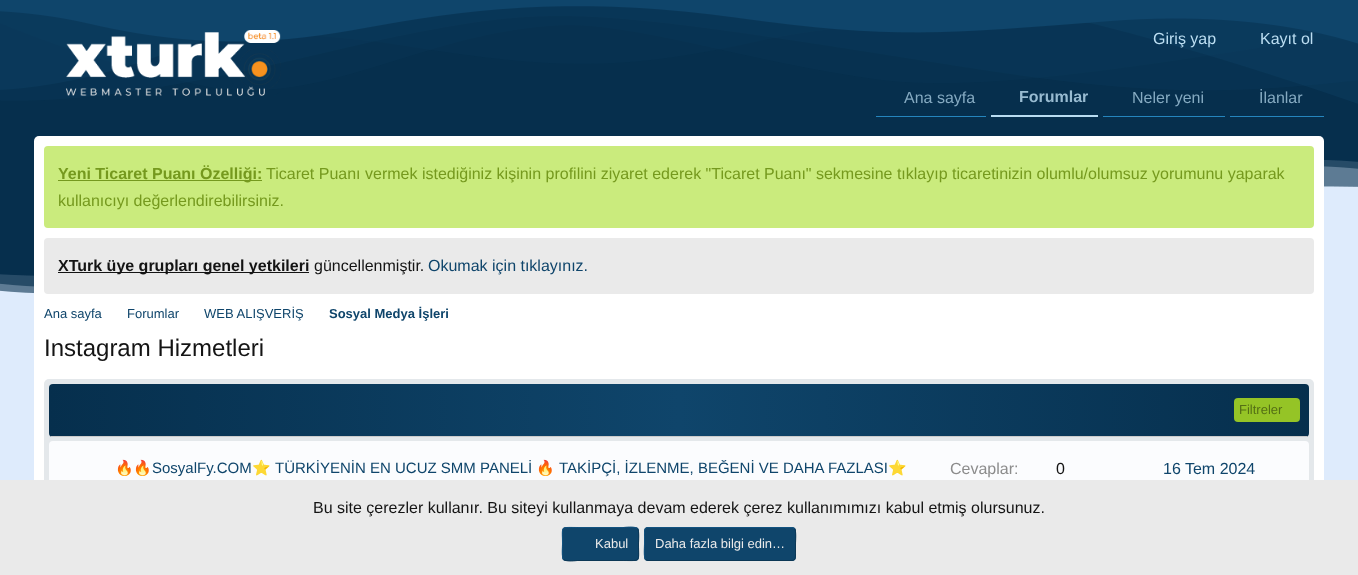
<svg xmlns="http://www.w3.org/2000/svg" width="1358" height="575">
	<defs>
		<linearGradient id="g1" gradientUnits="userSpaceOnUse" x1="49" y1="410" x2="1309" y2="410"><stop offset="0" stop-color="#062F4D" /><stop offset="0.5" stop-color="#0F456B" /><stop offset="1" stop-color="#062F4D" /></linearGradient>
	</defs>
	<rect width="100%" height="100%" fill="#DEEBFC" />
	<rect x="0" y="6" width="1358" height="288" fill="#062F4D" />
	<image x="0" y="0" width="1358" height="104" href="assets/img1.png" />
	<image x="0" y="160" width="1358" height="141" href="assets/img2.png" />
	<image x="65" y="30" width="216" height="66" href="assets/img3.png" />
	<g font-family="Liberation Sans" font-size="16" fill="#BCDEF2">
		<text x="1153" y="44">Giriş yap</text>
		<text x="1260" y="44">Kayıt ol</text>
	</g>
	<rect x="876" y="116" width="110" height="1" fill="#2585BD" />
	<text x="904" y="103" font-family="Liberation Sans" font-size="16" fill="#85AAC1">Ana sayfa</text>
	<rect x="991" y="115" width="107" height="2" fill="#B8DCF1" />
	<text x="1019" y="102" font-family="Liberation Sans" font-size="16" font-weight="700" fill="#98BBD1">Forumlar</text>
	<rect x="1103" y="116" width="122" height="1" fill="#2585BD" />
	<text x="1132" y="103" font-family="Liberation Sans" font-size="16" fill="#85AAC1">Neler yeni</text>
	<rect x="1230" y="116" width="94" height="1" fill="#2585BD" />
	<text x="1259" y="103" font-family="Liberation Sans" font-size="16" fill="#85AAC1">İlanlar</text>
	<rect x="34" y="136" width="1290" height="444" rx="5" fill="#FFFFFF" />
	<rect x="44" y="146" width="1270" height="82" rx="4" fill="#CAEB7D" />
	<rect x="58" y="180" width="204" height="1" fill="#75991E" />
	<text x="58" y="179" font-family="Liberation Sans" font-size="16" font-weight="700" fill="#75991E">Yeni Ticaret Puanı Özelliği:</text>
	<g font-family="Liberation Sans" font-size="16" fill="#75991E">
		<text x="266" y="179">Ticaret Puanı vermek istediğiniz kişinin profilini ziyaret ederek "Ticaret Puanı" sekmesine tıklayıp ticaretinizin olumlu/olumsuz yorumunu yaparak</text>
		<text x="58" y="206">kullanıcıyı değerlendirebilirsiniz.</text>
	</g>
	<rect x="44" y="238" width="1270" height="56" rx="4" fill="#EAEAEA" />
	<rect x="58" y="272" width="251" height="1" fill="#141414" />
	<text x="58" y="271" font-family="Liberation Sans" font-size="16" font-weight="700" fill="#141414">XTurk üye grupları genel yetkileri</text>
	<text x="314" y="271" font-family="Liberation Sans" font-size="16" fill="#141414">güncellenmiştir.</text>
	<text x="428" y="271" font-family="Liberation Sans" font-size="16" fill="#0F456B">Okumak için tıklayınız.</text>
	<g font-family="Liberation Sans" font-size="13" fill="#0F456B">
		<text x="44" y="318">Ana sayfa</text>
		<text x="127" y="318">Forumlar</text>
		<text x="204" y="318">WEB ALIŞVERİŞ</text>
	</g>
	<text x="329" y="318" font-family="Liberation Sans" font-size="13" font-weight="700" fill="#0F456B">Sosyal Medya İşleri</text>
	<text x="44" y="356" font-family="Liberation Sans" font-size="24" fill="#141414">Instagram Hizmetleri</text>
	<rect x="44" y="379" width="1270" height="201" rx="5" fill="#E4E8EB" />
	<rect x="49" y="384" width="1260" height="53" rx="4" fill="url(#g1)" />
	<rect x="51" y="436" width="1256" height="1" fill="#CBCBCB" />
	<rect x="1234" y="398" width="66" height="24" rx="4" fill="#95C426" />
	<text x="1239" y="414" font-family="Liberation Sans" font-size="13" fill="#546F15">Filtreler</text>
	<rect x="49" y="441" width="1260" height="99" rx="4" fill="#FBFCFE" />
	<text x="115" y="473" font-family="Noto Color Emoji" font-size="15" fill="#0F456B">🔥🔥</text>
	<text x="152" y="473" font-family="Liberation Sans" font-size="15" fill="#0F456B">SosyalFy.COM</text>
	<text x="252" y="473" font-family="Noto Color Emoji" font-size="15" fill="#0F456B">⭐</text>
	<text x="275" y="473" font-family="Liberation Sans" font-size="15" fill="#0F456B">TÜRKİYENİN EN UCUZ SMM PANELİ</text>
	<text x="536" y="473" font-family="Noto Color Emoji" font-size="15" fill="#0F456B">🔥</text>
	<text x="559" y="473" font-family="Liberation Sans" font-size="15" fill="#0F456B">TAKİPÇİ, İZLENME, BEĞENİ VE DAHA FAZLASI</text>
	<text x="888" y="473" font-family="Noto Color Emoji" font-size="15" fill="#0F456B">⭐</text>
	<text x="950" y="474" font-family="Liberation Sans" font-size="16" fill="#8C8C8C">Cevaplar:</text>
	<text x="1056" y="474" font-family="Liberation Sans" font-size="16" fill="#141414">0</text>
	<text x="1163" y="474" font-family="Liberation Sans" font-size="16" fill="#0F456B">16 Tem 2024</text>
	<rect x="0" y="480" width="1358" height="95" fill="#EAEAEA" />
	<text x="313" y="513" font-family="Liberation Sans" font-size="16" fill="#141414">Bu site çerezler kullanır. Bu siteyi kullanmaya devam ederek çerez kullanımımızı kabul etmiş olursunuz.</text>
	<rect x="562" y="527" width="77" height="34" rx="4" fill="#0F456B" />
	<path d="M637.5 528.5C639.5 531 638.5 541 638.5 544C638.5 562.5 641.5 560.5 623.5 560.5H577.5C577 560.5 566.5 562 563.5 559.5" fill="none" stroke="#0C3755" />
	<path d="M563.5 559.5C561.5 557 562.5 547 562.5 544C562.5 525.5 559.5 527.5 577.5 527.5H623.5C624 527.5 634.5 526 637.5 528.5" fill="none" stroke="#125381" />
	<text x="595" y="548" font-family="Liberation Sans" font-size="13" fill="#EAEAEA">Kabul</text>
	<rect x="644" y="527" width="152" height="34" rx="4" fill="#0F456B" />
	<path d="M794.5 528.5C796.5 531 795.5 541 795.5 544V552.5C795.5 555.5 796 560.5 792 560.5H648L645.5 559.5" fill="none" stroke="#0C3755" />
	<path d="M645.5 559.5C643.5 557 644.5 547 644.5 544V535.5C644.5 532.5 644 527.5 648 527.5H792L794.5 528.5" fill="none" stroke="#125381" />
	<text x="655" y="548" font-family="Liberation Sans" font-size="13" fill="#EAEAEA">Daha fazla bilgi edin…</text>
</svg>
